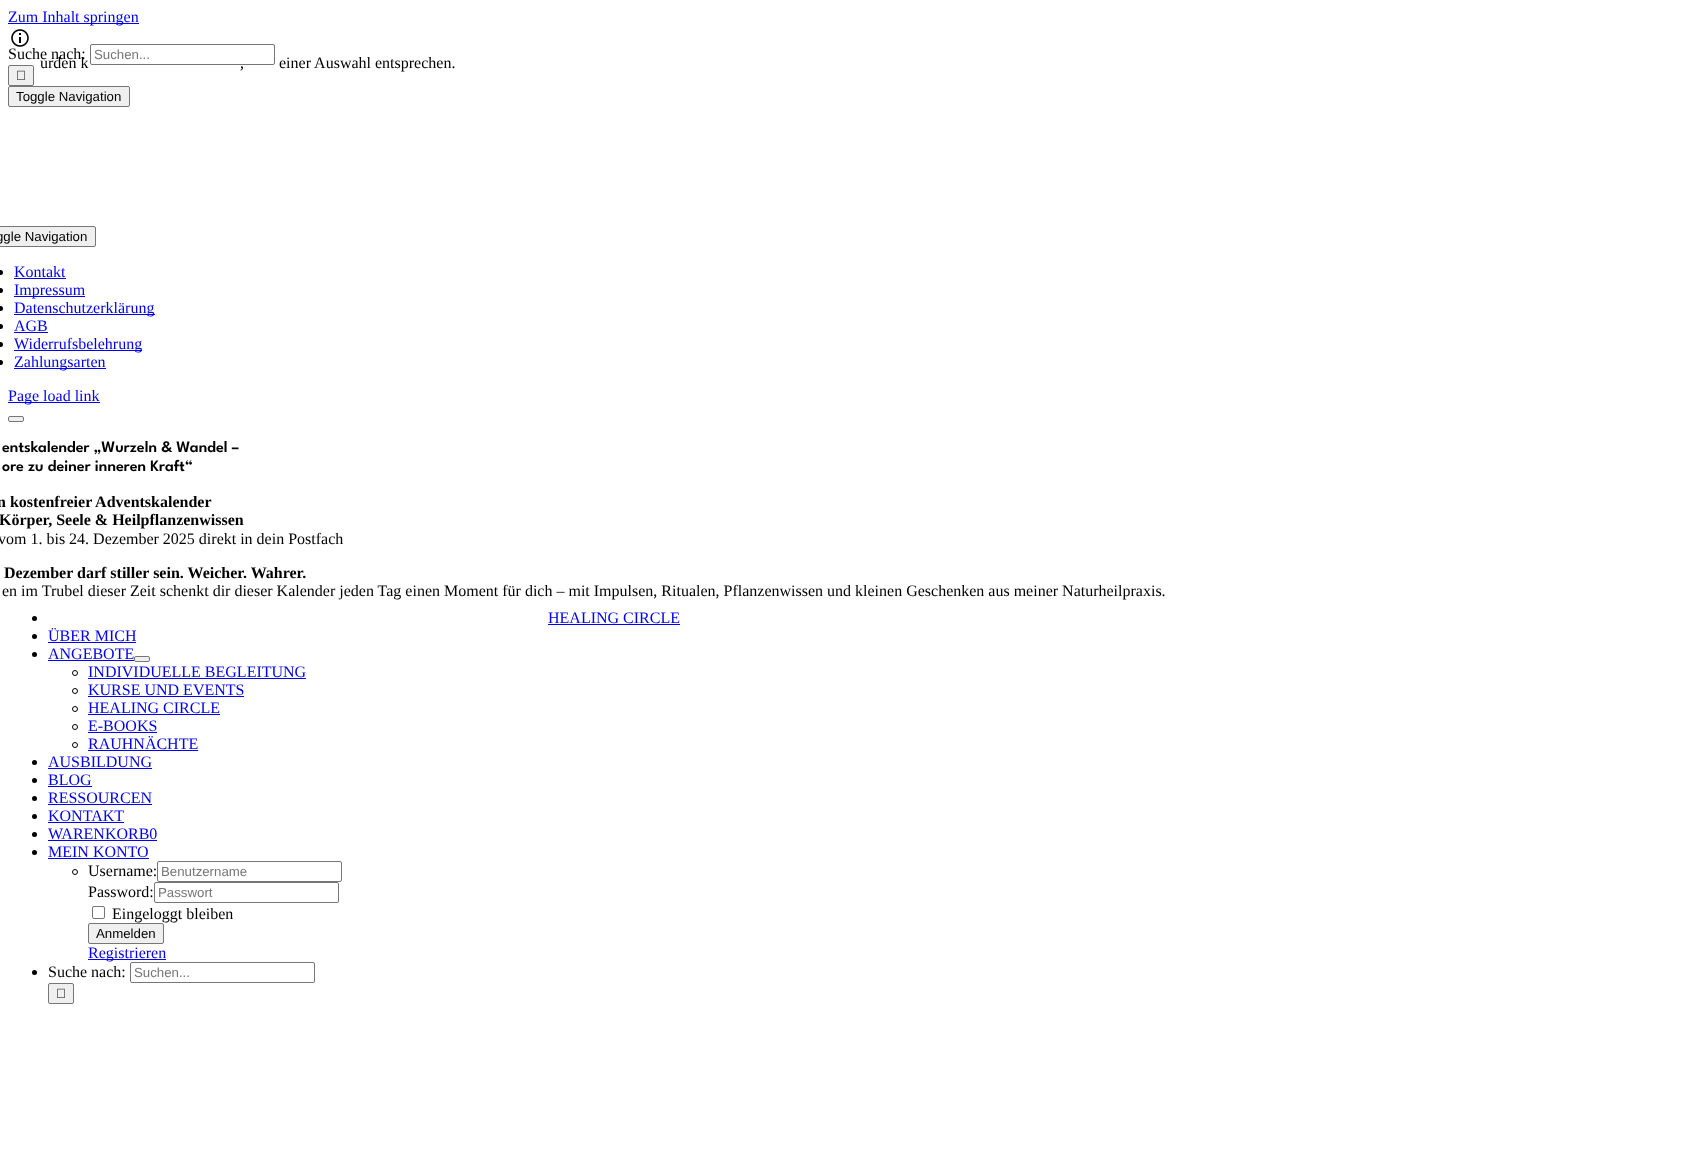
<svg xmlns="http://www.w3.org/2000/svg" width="1703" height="1163">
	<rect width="100%" height="100%" fill="#FFFFFF" />
	<rect x="8" y="23" width="131" height="1" fill="#0000EE" />
	<text x="8" y="22" font-family="Liberation Serif" font-size="16" fill="#0000EE">Zum Inhalt springen</text>
	<text x="8" y="59" font-family="Liberation Serif" font-size="16" fill="#000000">Suche nach:</text>
	<rect x="90.5" y="44.5" width="184" height="20" rx="1.5" fill="none" stroke="#767676" />
	<text x="94" y="59" font-family="Liberation Sans" font-size="13.25" fill="#757575">Suchen...</text>
	<rect x="8.5" y="65.5" width="25" height="20" rx="1.5" fill="#EFEFEF" stroke="#767676" />
	<image x="17" y="70" width="8" height="10" href="assets/img1.png" />
	<rect x="8.5" y="86.5" width="121" height="20" rx="1.5" fill="#EFEFEF" stroke="#767676" />
	<text x="16" y="101" font-family="Liberation Sans" font-size="13.25" fill="#000000">Toggle Navigation</text>
	<circle cx="34.5" cy="618.5" r="2.5" fill="#000000" />
	<text x="548" y="623" font-family="Liberation Serif" font-size="16" fill="#0000EE">HEALING CIRCLE</text>
	<rect x="548" y="624" width="132" height="1" fill="#0000EE" />
	<circle cx="34.5" cy="636.5" r="2.5" fill="#000000" />
	<text x="48" y="641" font-family="Liberation Serif" font-size="16" fill="#0000EE">ÜBER MICH</text>
	<rect x="48" y="642" width="88" height="1" fill="#0000EE" />
	<circle cx="34.5" cy="654.5" r="2.5" fill="#000000" />
	<text x="48" y="659" font-family="Liberation Serif" font-size="16" fill="#0000EE">ANGEBOTE</text>
	<rect x="48" y="660" width="86" height="1" fill="#0000EE" />
	<rect x="134.5" y="656.5" width="15" height="5" rx="1.5" fill="#EFEFEF" stroke="#767676" />
	<circle cx="75" cy="673" r="2.5" fill="none" stroke="#000000" />
	<text x="88" y="677" font-family="Liberation Serif" font-size="16" fill="#0000EE">INDIVIDUELLE BEGLEITUNG</text>
	<rect x="88" y="678" width="218" height="1" fill="#0000EE" />
	<circle cx="75" cy="691" r="2.5" fill="none" stroke="#000000" />
	<text x="88" y="695" font-family="Liberation Serif" font-size="16" fill="#0000EE">KURSE UND EVENTS</text>
	<rect x="88" y="696" width="156" height="1" fill="#0000EE" />
	<circle cx="75" cy="709" r="2.5" fill="none" stroke="#000000" />
	<text x="88" y="713" font-family="Liberation Serif" font-size="16" fill="#0000EE">HEALING CIRCLE</text>
	<rect x="88" y="714" width="132" height="1" fill="#0000EE" />
	<circle cx="75" cy="727" r="2.5" fill="none" stroke="#000000" />
	<text x="88" y="731" font-family="Liberation Serif" font-size="16" fill="#0000EE">E-BOOKS</text>
	<rect x="88" y="732" width="69" height="1" fill="#0000EE" />
	<circle cx="75" cy="745" r="2.5" fill="none" stroke="#000000" />
	<text x="88" y="749" font-family="Liberation Serif" font-size="16" fill="#0000EE">RAUHNÄCHTE</text>
	<rect x="88" y="750" width="110" height="1" fill="#0000EE" />
	<circle cx="34.5" cy="762.5" r="2.5" fill="#000000" />
	<text x="48" y="767" font-family="Liberation Serif" font-size="16" fill="#0000EE">AUSBILDUNG</text>
	<rect x="48" y="768" width="104" height="1" fill="#0000EE" />
	<circle cx="34.5" cy="780.5" r="2.5" fill="#000000" />
	<text x="48" y="785" font-family="Liberation Serif" font-size="16" fill="#0000EE">BLOG</text>
	<rect x="48" y="786" width="44" height="1" fill="#0000EE" />
	<circle cx="34.5" cy="798.5" r="2.5" fill="#000000" />
	<text x="48" y="803" font-family="Liberation Serif" font-size="16" fill="#0000EE">RESSOURCEN</text>
	<rect x="48" y="804" width="104" height="1" fill="#0000EE" />
	<circle cx="34.5" cy="816.5" r="2.5" fill="#000000" />
	<text x="48" y="821" font-family="Liberation Serif" font-size="16" fill="#0000EE">KONTAKT</text>
	<rect x="48" y="822" width="76" height="1" fill="#0000EE" />
	<circle cx="34.5" cy="834.5" r="2.5" fill="#000000" />
	<text x="48" y="839" font-family="Liberation Serif" font-size="16" fill="#0000EE">WARENKORB0</text>
	<rect x="48" y="840" width="109" height="1" fill="#0000EE" />
	<circle cx="34.5" cy="852.5" r="2.5" fill="#000000" />
	<text x="48" y="857" font-family="Liberation Serif" font-size="16" fill="#0000EE">MEIN KONTO</text>
	<rect x="48" y="858" width="101" height="1" fill="#0000EE" />
	<circle cx="75" cy="872" r="2.5" fill="none" stroke="#000000" />
	<text x="88" y="876" font-family="Liberation Serif" font-size="16" fill="#000000">Username:</text>
	<rect x="157.5" y="861.5" width="184" height="20" rx="1.5" fill="none" stroke="#767676" />
	<text x="161" y="876" font-family="Liberation Sans" font-size="13.25" fill="#757575">Benutzername</text>
	<text x="88" y="897" font-family="Liberation Serif" font-size="16" fill="#000000">Password:</text>
	<rect x="154.5" y="882.5" width="184" height="20" rx="1.5" fill="none" stroke="#767676" />
	<text x="158" y="897" font-family="Liberation Sans" font-size="13.25" fill="#757575">Passwort</text>
	<rect x="92.5" y="906.5" width="12" height="12" rx="1.5" fill="none" stroke="#767676" />
	<text x="112" y="919" font-family="Liberation Serif" font-size="16" fill="#000000">Eingeloggt bleiben</text>
	<rect x="88.5" y="923.5" width="75" height="20" rx="1.5" fill="#EFEFEF" stroke="#767676" />
	<text x="96" y="938" font-family="Liberation Sans" font-size="13.25" fill="#000000">Anmelden</text>
	<rect x="88" y="959" width="78" height="1" fill="#0000EE" />
	<text x="88" y="958" font-family="Liberation Serif" font-size="16" fill="#0000EE">Registrieren</text>
	<circle cx="34.5" cy="972.5" r="2.5" fill="#000000" />
	<text x="48" y="977" font-family="Liberation Serif" font-size="16" fill="#000000">Suche nach:</text>
	<rect x="130.5" y="962.5" width="184" height="20" rx="1.5" fill="none" stroke="#767676" />
	<text x="134" y="977" font-family="Liberation Sans" font-size="13.25" fill="#757575">Suchen...</text>
	<rect x="48.5" y="983.5" width="25" height="20" rx="1.5" fill="#EFEFEF" stroke="#767676" />
	<image x="57" y="988" width="8" height="10" href="assets/img1.png" />
	<image x="11" y="29" width="18" height="18" href="assets/img2.png" />
	<g font-family="Liberation Serif" font-size="16" fill="#000000">
		<text x="40" y="68">urden k</text>
		<text x="240" y="68">,</text>
		<text x="279" y="68">einer Auswahl entsprechen.</text>
	</g>
	<rect x="-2.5" y="226.5" width="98" height="20" rx="1.5" fill="#EFEFEF" stroke="#767676" />
	<text x="-4" y="241" font-family="Liberation Sans" font-size="13.25" fill="#000000">ggle Navigation</text>
	<circle cx="0.5" cy="272.5" r="2.5" fill="#000000" />
	<text x="14" y="277" font-family="Liberation Serif" font-size="16" fill="#0000EE">Kontakt</text>
	<rect x="14" y="278" width="52" height="1" fill="#0000EE" />
	<circle cx="0.5" cy="290.5" r="2.5" fill="#000000" />
	<rect x="14" y="296" width="71" height="1" fill="#0000EE" />
	<text x="14" y="295" font-family="Liberation Serif" font-size="16" fill="#0000EE">Impressum</text>
	<circle cx="0.5" cy="308.5" r="2.5" fill="#000000" />
	<rect x="14" y="314" width="141" height="1" fill="#0000EE" />
	<text x="14" y="313" font-family="Liberation Serif" font-size="16" fill="#0000EE">Datenschutzerklärung</text>
	<circle cx="0.5" cy="326.5" r="2.5" fill="#000000" />
	<text x="14" y="331" font-family="Liberation Serif" font-size="16" fill="#0000EE">AGB</text>
	<rect x="14" y="332" width="34" height="1" fill="#0000EE" />
	<circle cx="0.5" cy="344.5" r="2.5" fill="#000000" />
	<rect x="14" y="350" width="128" height="1" fill="#0000EE" />
	<text x="14" y="349" font-family="Liberation Serif" font-size="16" fill="#0000EE">Widerrufsbelehrung</text>
	<circle cx="0.5" cy="362.5" r="2.5" fill="#000000" />
	<rect x="14" y="368" width="92" height="1" fill="#0000EE" />
	<text x="14" y="367" font-family="Liberation Serif" font-size="16" fill="#0000EE">Zahlungsarten</text>
	<rect x="8" y="402" width="92" height="1" fill="#0000EE" />
	<text x="8" y="401" font-family="Liberation Serif" font-size="16" fill="#0000EE">Page load link</text>
	<rect x="8.5" y="416.5" width="15" height="5" rx="1.5" fill="#EFEFEF" stroke="#767676" />
	<g font-family="League Spartan" font-size="16" font-weight="600" fill="#000000">
		<text x="2" y="452">entskalender „Wurzeln &amp; Wandel –</text>
		<text x="2" y="471">ore zu deiner inneren Kraft“</text>
	</g>
	<g font-family="Liberation Serif" font-size="16" font-weight="700" fill="#000000">
		<text x="-3" y="507">n kostenfreier Adventskalender</text>
		<text x="-1" y="525">Körper, Seele &amp; Heilpflanzenwissen</text>
	</g>
	<text x="-2" y="544" font-family="Liberation Serif" font-size="16" fill="#000000">vom 1. bis 24. Dezember 2025 direkt in dein Postfach</text>
	<text x="4" y="578" font-family="Liberation Serif" font-size="16" font-weight="700" fill="#000000">Dezember darf stiller sein. Weicher. Wahrer.</text>
	<text x="2" y="596" font-family="Liberation Serif" font-size="16" fill="#000000">en im Trubel dieser Zeit schenkt dir dieser Kalender jeden Tag einen Moment für dich – mit Impulsen, Ritualen, Pflanzenwissen und kleinen Geschenken aus meiner Naturheilpraxis.</text>
</svg>
